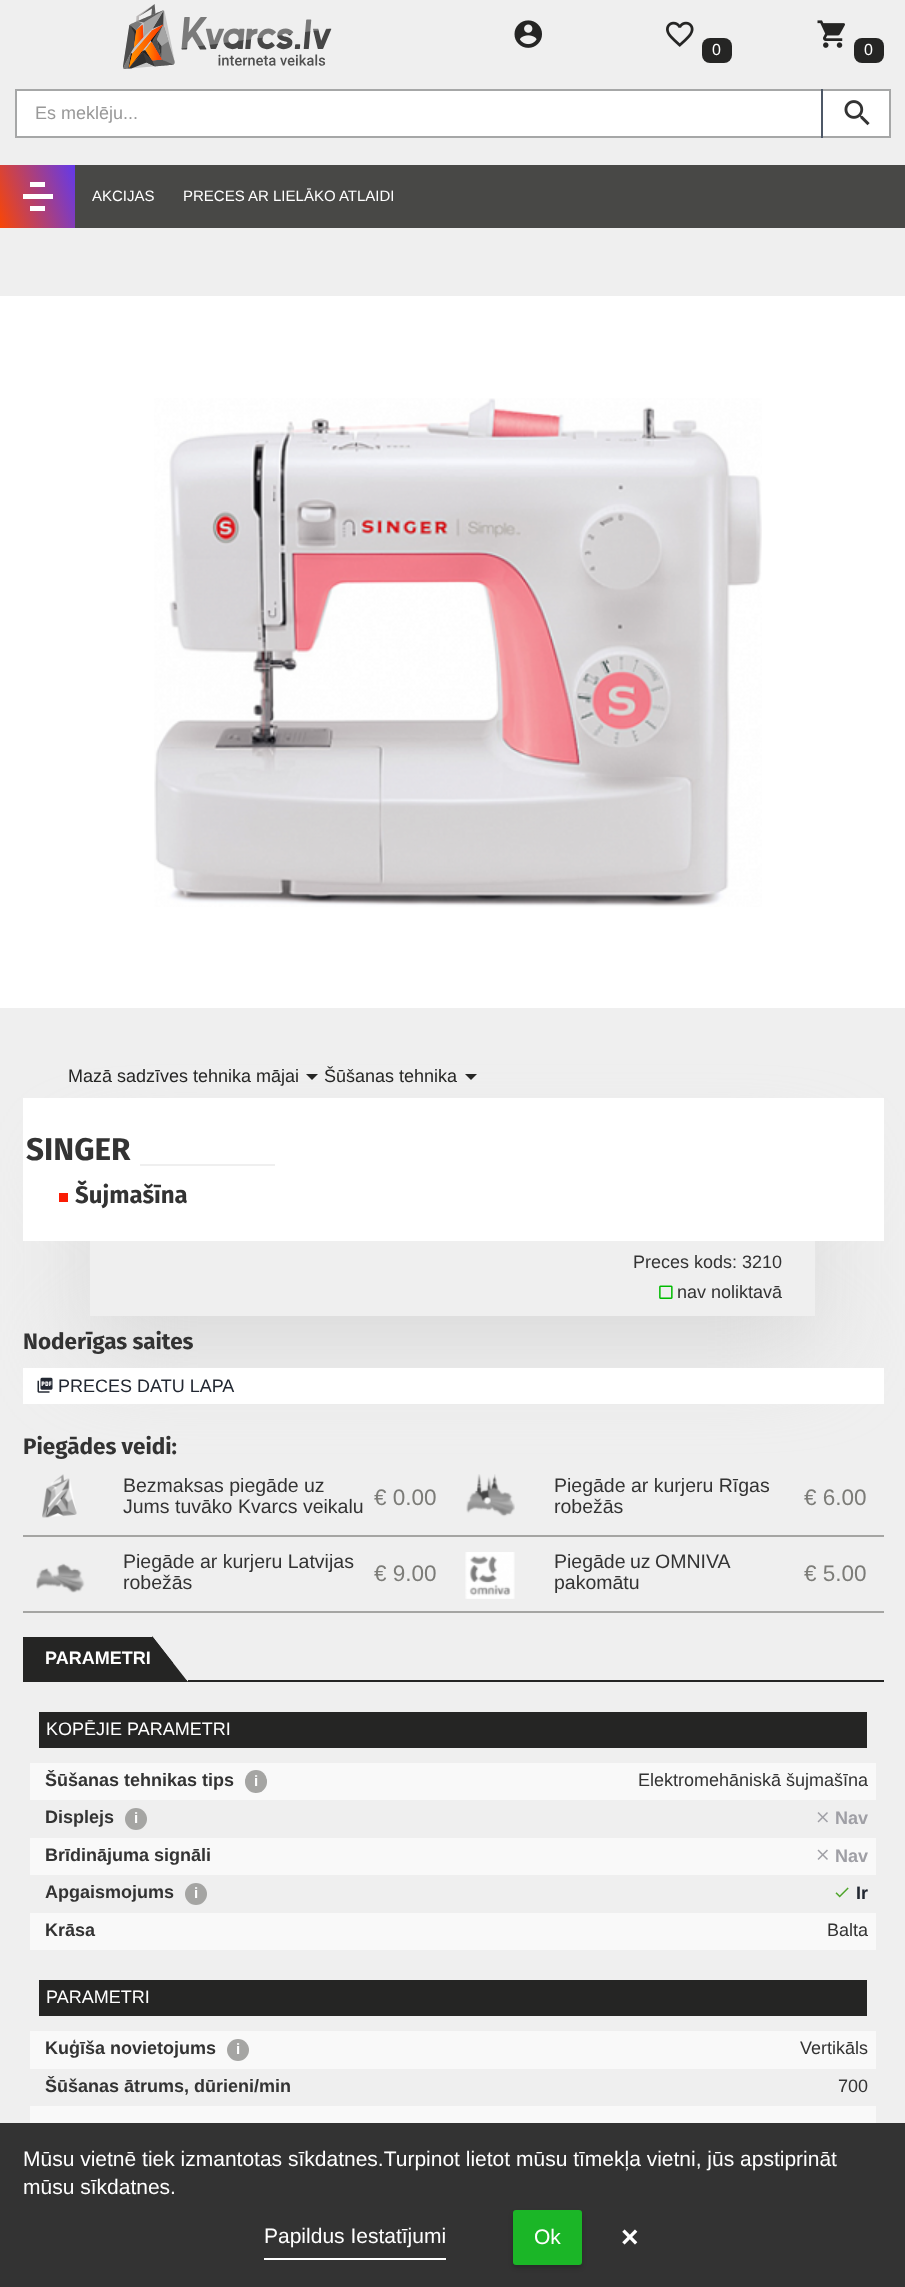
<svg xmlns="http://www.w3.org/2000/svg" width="905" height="2287">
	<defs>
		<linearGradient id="g1" gradientUnits="userSpaceOnUse" x1="-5.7" y1="211" x2="81" y2="182"><stop offset="0" stop-color="#F94605" /><stop offset="1" stop-color="#6239EC" /></linearGradient>
		<clipPath id="clip1"><path d="M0 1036H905V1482H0ZM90 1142H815V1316H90Z" clip-rule="evenodd" /></clipPath>
	</defs>
	<rect width="100%" height="100%" fill="#EFEFEF" />
	<image x="123" y="4" width="209" height="65" href="assets/img1.png" />
	<image x="514" y="20" width="28" height="28" href="assets/img2.png" />
	<image x="666" y="21" width="28" height="26" href="assets/img3.png" />
	<rect x="702" y="38" width="30" height="25" rx="8" fill="#252524" />
	<text x="712" y="55" font-family="Liberation Sans" font-size="16" fill="#FFFFFF">0</text>
	<image x="817" y="20" width="28" height="28" href="assets/img4.png" />
	<rect x="854" y="38" width="30" height="25" rx="8" fill="#252524" />
	<text x="864" y="55" font-family="Liberation Sans" font-size="16" fill="#FFFFFF">0</text>
	<rect x="16" y="90" width="874" height="47" fill="#FFFFFF" stroke="#A6A7A7" stroke-width="2" />
	<text x="35" y="119" font-family="Liberation Sans" font-size="18" fill="#999999">Es meklēju...</text>
	<rect x="821" y="89" width="2" height="49" fill="#4E5867" />
	<image x="844" y="100" width="26" height="26" href="assets/img5.png" />
	<rect x="75" y="165" width="830" height="63" fill="#484846" />
	<rect x="0" y="165" width="75" height="63" fill="url(#g1)" />
	<rect x="30" y="182" width="15" height="5" fill="#FFFFFF" />
	<rect x="23" y="194" width="30" height="5" fill="#FFFFFF" />
	<rect x="30" y="206" width="15" height="5" fill="#FFFFFF" />
	<g font-family="Liberation Sans" font-size="15" fill="#FFFFFF">
		<text x="92" y="201">AKCIJAS</text>
		<text x="183" y="201">PRECES AR LIELĀKO ATLAIDI</text>
	</g>
	<rect x="0" y="296" width="905" height="712" fill="#FFFFFF" />
	<image x="154" y="398" width="608" height="509" href="assets/img6.png" />
	<text x="68" y="1082" font-family="Liberation Sans" font-size="18" fill="#252524">Mazā sadzīves tehnika mājai</text>
	<path d="M306 1074H318L312 1080Z" fill="#252524" />
	<text x="324" y="1082" font-family="Liberation Sans" font-size="18" fill="#252524">Šūšanas tehnika</text>
	<path d="M465 1074H477L471 1080Z" fill="#252524" />
	<g clip-path="url(#clip1)">
		<rect x="90" y="1172" width="725" height="174" fill="#D9D9D9" filter="blur(45px)" />
	</g>
	<rect x="23" y="1098" width="861" height="143" fill="#FFFFFF" />
	<text x="26" y="1160" font-family="Fira Sans" font-size="31.5" font-weight="700" fill="#333333">SINGER</text>
	<rect x="140" y="1164" width="135" height="2" fill="#EFEFEF" />
	<rect x="59" y="1193" width="9" height="9" fill="#FA1C04" />
	<text x="75" y="1203" font-family="Fira Sans" font-size="24" font-weight="700" fill="#333333">Šujmašīna</text>
	<rect x="108" y="1315" width="689" height="1" fill="#EFEFEF" />
	<text x="633" y="1268" font-family="Liberation Sans" font-size="18" fill="#333333">Preces kods: 3210</text>
	<image x="659" y="1285" width="14" height="14" href="assets/img7.png" />
	<text x="677" y="1298" font-family="Liberation Sans" font-size="18" fill="#333333">nav noliktavā</text>
	<text x="23" y="1349" font-family="Fira Sans" font-size="22.5" font-weight="700" fill="#333333">Noderīgas saites</text>
	<rect x="23" y="1368" width="861" height="36" fill="#FFFFFF" />
	<image x="37" y="1377" width="16" height="16" href="assets/img8.png" />
	<text x="58" y="1392" font-family="Liberation Sans" font-size="18" fill="#222832">PRECES DATU LAPA</text>
	<text x="23" y="1454" font-family="Fira Sans" font-size="22.5" font-weight="700" fill="#333333">Piegādes veidi:</text>
	<rect x="23" y="1535" width="861" height="2" fill="#A5A5A3" />
	<image x="42" y="1474" width="35" height="44" href="assets/img9.png" />
	<g font-family="Liberation Sans" font-size="19.5" fill="#333333">
		<text x="123" y="1492">Bezmaksas piegāde uz</text>
		<text x="123" y="1513">Jums tuvāko Kvarcs veikalu</text>
	</g>
	<text x="374" y="1505" font-family="Liberation Sans" font-size="22.5" fill="#7C7C78">€ 0.00</text>
	<image x="466" y="1474" width="49" height="43" href="assets/img10.png" />
	<g font-family="Liberation Sans" font-size="19.5" fill="#333333">
		<text x="554" y="1492">Piegāde ar kurjeru Rīgas</text>
		<text x="554" y="1513">robežās</text>
	</g>
	<text x="804" y="1505" font-family="Liberation Sans" font-size="22.5" fill="#7C7C78">€ 6.00</text>
	<rect x="23" y="1611" width="861" height="2" fill="#A5A5A3" />
	<image x="36" y="1563" width="49" height="30" href="assets/img11.png" />
	<g font-family="Liberation Sans" font-size="19.5" fill="#333333">
		<text x="123" y="1568">Piegāde ar kurjeru Latvijas</text>
		<text x="123" y="1589">robežās</text>
	</g>
	<text x="374" y="1581" font-family="Liberation Sans" font-size="22.5" fill="#7C7C78">€ 9.00</text>
	<image x="465" y="1552" width="50" height="47" href="assets/img12.png" />
	<g font-family="Liberation Sans" font-size="19.5" fill="#333333">
		<text x="554" y="1568" word-spacing="-1">Piegāde uz OMNIVA</text>
		<text x="554" y="1589">pakomātu</text>
	</g>
	<text x="804" y="1581" font-family="Liberation Sans" font-size="22.5" fill="#7C7C78">€ 5.00</text>
	<rect x="186" y="1680" width="698" height="2" fill="#252524" />
	<rect x="23" y="1637" width="150" height="45" fill="#252524" />
	<text x="45" y="1664" font-family="Liberation Sans" font-size="18" font-weight="700" fill="#FFFFFF">PARAMETRI</text>
	<path d="M152 1636H188V1682Z" fill="#EFEFEF" />
	<path d="M152 1682V1636L188 1682Z" fill="#252524" />
	<rect x="39" y="1712" width="828" height="36" fill="#252524" />
	<text x="46" y="1735" font-family="Liberation Sans" font-size="18" fill="#FFFFFF">KOPĒJIE PARAMETRI</text>
	<rect x="30" y="1763" width="846" height="37" fill="#F9F9F9" />
	<text x="45" y="1786" font-family="Liberation Sans" font-size="18" font-weight="700" fill="#333333">Šūšanas tehnikas tips</text>
	<rect x="245" y="1770" width="22" height="23" rx="11" fill="#A5A5A3" />
	<text x="254" y="1786" font-family="Liberation Sans" font-size="15" font-weight="700" fill="#FFFFFF">i</text>
	<text x="638" y="1786" font-family="Liberation Sans" font-size="18" fill="#333333">Elektromehāniskā šujmašīna</text>
	<text x="45" y="1823" font-family="Liberation Sans" font-size="18" font-weight="700" fill="#333333">Displejs</text>
	<circle cx="136" cy="1819" r="11" fill="#A5A5A3" />
	<text x="134" y="1823" font-family="Liberation Sans" font-size="15" font-weight="700" fill="#FFFFFF">i</text>
	<image x="817" y="1812" width="11" height="11" href="assets/img13.png" />
	<text x="835" y="1824" font-family="Liberation Sans" font-size="18" font-weight="700" fill="#9F9FA5">Nav</text>
	<rect x="30" y="1838" width="846" height="37" fill="#F9F9F9" />
	<text x="45" y="1861" font-family="Liberation Sans" font-size="18" font-weight="700" fill="#333333">Brīdinājuma signāli</text>
	<image x="817" y="1849" width="11" height="11" href="assets/img14.png" />
	<text x="835" y="1862" font-family="Liberation Sans" font-size="18" font-weight="700" fill="#9F9FA5">Nav</text>
	<text x="45" y="1898" font-family="Liberation Sans" font-size="18" font-weight="700" fill="#333333">Apgaismojums</text>
	<circle cx="196" cy="1894" r="11" fill="#A5A5A3" />
	<text x="194" y="1898" font-family="Liberation Sans" font-size="15" font-weight="700" fill="#FFFFFF">i</text>
	<image x="835" y="1887" width="14" height="11" href="assets/img15.png" />
	<text x="856" y="1899" font-family="Liberation Sans" font-size="18" font-weight="700" fill="#222832">Ir</text>
	<rect x="30" y="1913" width="846" height="37" fill="#F9F9F9" />
	<text x="45" y="1936" font-family="Liberation Sans" font-size="18" font-weight="700" fill="#333333">Krāsa</text>
	<text x="827" y="1936" font-family="Liberation Sans" font-size="18" fill="#333333">Balta</text>
	<rect x="39" y="1980" width="828" height="36" fill="#252524" />
	<text x="46" y="2003" font-family="Liberation Sans" font-size="18" fill="#FFFFFF">PARAMETRI</text>
	<rect x="30" y="2031" width="846" height="38" fill="#F9F9F9" />
	<text x="45" y="2054" font-family="Liberation Sans" font-size="18" font-weight="700" fill="#333333">Kuģīša novietojums</text>
	<circle cx="238" cy="2050" r="11" fill="#A5A5A3" />
	<text x="236" y="2054" font-family="Liberation Sans" font-size="15" font-weight="700" fill="#FFFFFF">i</text>
	<text x="800" y="2054" font-family="Liberation Sans" font-size="18" fill="#333333">Vertikāls</text>
	<text x="45" y="2092" font-family="Liberation Sans" font-size="18" font-weight="700" fill="#333333">Šūšanas ātrums, dūrieni/min</text>
	<text x="838" y="2092" font-family="Liberation Sans" font-size="18" fill="#333333">700</text>
	<rect x="30" y="2106" width="846" height="17" fill="#F9F9F9" />
	<rect x="0" y="2123" width="905" height="164" fill="#333333" />
	<g font-family="Liberation Sans" font-size="21" fill="#FFFFFF">
		<text x="23" y="2166">Mūsu vietnē tiek izmantotas sīkdatnes.Turpinot lietot mūsu tīmekļa vietni, jūs apstiprināt</text>
		<text x="23" y="2194">mūsu sīkdatnes.</text>
	</g>
	<rect x="264" y="2258" width="182" height="2" fill="#FFFFFF" />
	<text x="264" y="2243" font-family="Liberation Sans" font-size="21" fill="#FFFFFF">Papildus Iestatījumi</text>
	<rect x="513" y="2213" width="69" height="55" rx="3" fill="#000000" fill-opacity="0.2" filter="blur(2px)" />
	<rect x="513" y="2210" width="69" height="55" rx="3" fill="#1BB627" />
	<text x="534" y="2244" font-family="Liberation Sans" font-size="21" fill="#FFFFFF">Ok</text>
	<text x="621" y="2247" font-family="Liberation Sans" font-size="30" font-weight="700" fill="#FFFFFF">×</text>
</svg>
